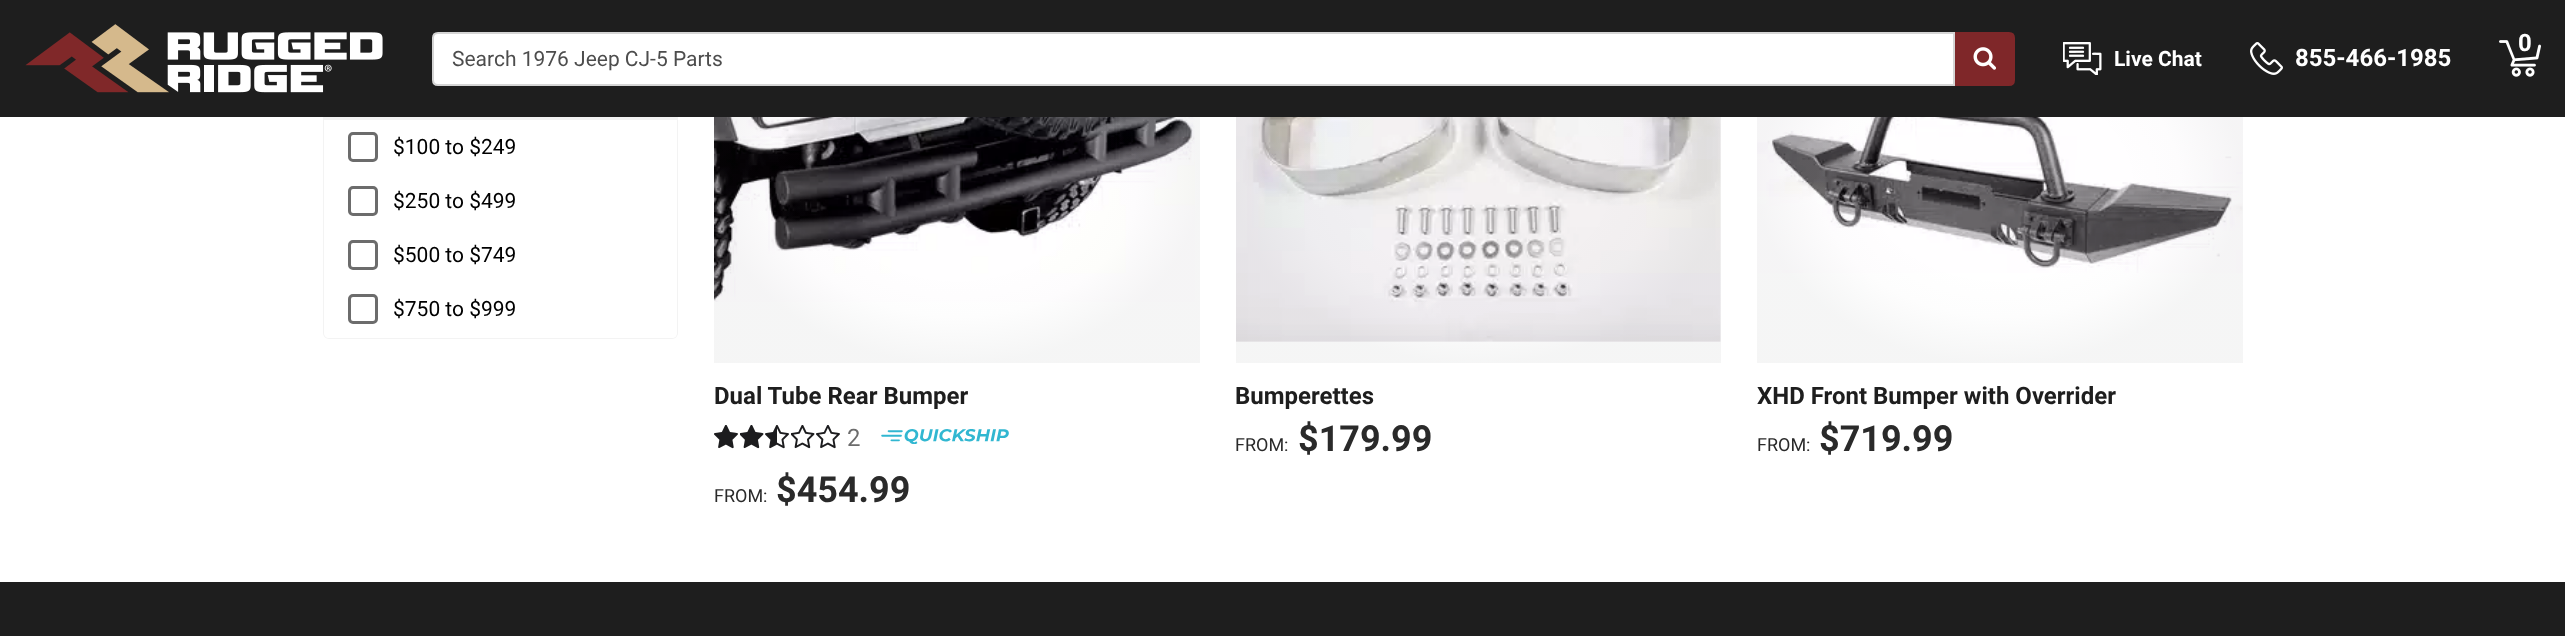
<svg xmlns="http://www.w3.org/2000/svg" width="2565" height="636">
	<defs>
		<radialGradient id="g1" gradientUnits="userSpaceOnUse" cx="0" cy="0" r="1" gradientTransform="matrix(243 0 0 182 957 182)"><stop offset="0.5" stop-color="#373E3E" stop-opacity="0" /><stop offset="0.74" stop-color="#373E3E" stop-opacity="0.01" /><stop offset="1" stop-color="#373E3E" stop-opacity="0.05" /></radialGradient>
		<radialGradient id="g2" gradientUnits="userSpaceOnUse" cx="0" cy="0" r="1" gradientTransform="matrix(242 0 0 182 1478 182)"><stop offset="0.5" stop-color="#373E3E" stop-opacity="0" /><stop offset="0.74" stop-color="#373E3E" stop-opacity="0.01" /><stop offset="1" stop-color="#373E3E" stop-opacity="0.05" /></radialGradient>
		<radialGradient id="g3" gradientUnits="userSpaceOnUse" cx="0" cy="0" r="1" gradientTransform="matrix(243 0 0 182 2000 182)"><stop offset="0.5" stop-color="#373E3E" stop-opacity="0" /><stop offset="0.74" stop-color="#373E3E" stop-opacity="0.01" /><stop offset="1" stop-color="#373E3E" stop-opacity="0.05" /></radialGradient>
	</defs>
	<rect width="100%" height="100%" fill="#FFFFFF" />
	<rect x="324" y="51" width="353" height="287" rx="5" fill="none" stroke="#F3F3F3" stroke-width="2" />
	<rect x="0" y="0" width="2565" height="117" fill="#1E1E1E" />
	<image x="25" y="24" width="358" height="69" href="assets/img1.png" />
	<path d="M438 33H1954V85H438C435 85 433 83 433 80V38C433 35 435 33 438 33Z" fill="#FFFFFF" stroke="#D5D5D5" stroke-width="2" />
	<text x="452" y="66" font-family="Roboto" font-size="21" fill="#4D4D4D">Search 1976 Jeep CJ-5 Parts</text>
	<path d="M1956 33H2009C2012 33 2014 35 2014 38V80C2014 83 2012 85 2009 85H1956Z" fill="#7F2729" stroke="#7F2729" stroke-width="2" />
	<image x="1973" y="47" width="23" height="23" href="assets/img2.png" />
	<image x="2499" y="40" width="42" height="37" href="assets/img3.png" />
	<text x="2518" y="51" font-family="Roboto" font-size="24" font-weight="700" fill="#FFFFFF">0</text>
	<image x="2063" y="42" width="39" height="33" href="assets/img4.png" />
	<text x="2114" y="66" font-family="Roboto" font-size="21" font-weight="700" fill="#FFFFFF">Live Chat</text>
	<image x="2250" y="42" width="33" height="33" href="assets/img5.png" />
	<text x="2295" y="66" font-family="Roboto" font-size="24" font-weight="700" fill="#FFFFFF">855-466-1985</text>
	<rect x="324" y="117" width="353" height="3" fill="#F3F3F3" />
	<path d="M324 120H677V333C677 336 675 338 672 338H329C326 338 324 336 324 333Z" fill="#FFFFFF" />
	<rect x="349.5" y="133.5" width="27" height="27" rx="3.5" fill="none" stroke="#6C6C6C" stroke-width="3" />
	<text x="393" y="154" font-family="Roboto" font-size="21" fill="#000000">$100 to $249</text>
	<rect x="349.5" y="187.5" width="27" height="27" rx="3.5" fill="none" stroke="#6C6C6C" stroke-width="3" />
	<text x="393" y="208" font-family="Roboto" font-size="21" fill="#000000">$250 to $499</text>
	<rect x="349.5" y="241.5" width="27" height="27" rx="3.5" fill="none" stroke="#6C6C6C" stroke-width="3" />
	<text x="393" y="262" font-family="Roboto" font-size="21" fill="#000000">$500 to $749</text>
	<rect x="349.5" y="295.5" width="27" height="27" rx="3.5" fill="none" stroke="#6C6C6C" stroke-width="3" />
	<text x="393" y="316" font-family="Roboto" font-size="21" fill="#000000">$750 to $999</text>
	<image x="714" y="117" width="481" height="185" href="assets/img6.png" />
	<rect x="714" y="117" width="486" height="246" fill="url(#g1)" />
	<text x="714" y="404" font-family="Roboto" font-size="24" font-weight="700" fill="#1E1E1E">Dual Tube Rear Bumper</text>
	<image x="714" y="425" width="24" height="24" href="assets/img7.png" />
	<image x="740" y="425" width="24" height="24" href="assets/img8.png" />
	<image x="765" y="425" width="24" height="24" href="assets/img9.png" />
	<image x="791" y="425" width="24" height="24" href="assets/img10.png" />
	<image x="816" y="425" width="24" height="24" href="assets/img11.png" />
	<text x="847" y="446" font-family="Roboto" font-size="24" fill="#6C6C6C">2</text>
	<image x="881" y="429" width="128" height="15" href="assets/img12.png" />
	<text x="714" y="502" font-family="Roboto" font-size="18" fill="#2A2A2A">FROM:</text>
	<text x="776" y="502" font-family="Roboto" font-size="36" font-weight="700" fill="#2A2A2A">$454.99</text>
	<image x="1236" y="117" width="485" height="225" href="assets/img13.png" />
	<rect x="1236" y="117" width="485" height="246" fill="url(#g2)" />
	<text x="1235" y="404" font-family="Roboto" font-size="24" font-weight="700" fill="#1E1E1E">Bumperettes</text>
	<text x="1235" y="451" font-family="Roboto" font-size="18" fill="#2A2A2A">FROM:</text>
	<text x="1298" y="451" font-family="Roboto" font-size="36" font-weight="700" fill="#2A2A2A">$179.99</text>
	<image x="1757" y="117" width="486" height="156" href="assets/img14.png" />
	<rect x="1757" y="117" width="486" height="246" fill="url(#g3)" />
	<text x="1757" y="404" font-family="Roboto" font-size="24" font-weight="700" fill="#1E1E1E">XHD Front Bumper with Overrider</text>
	<text x="1757" y="451" font-family="Roboto" font-size="18" fill="#2A2A2A">FROM:</text>
	<text x="1819" y="451" font-family="Roboto" font-size="36" font-weight="700" fill="#2A2A2A">$719.99</text>
	<rect x="0" y="582" width="2565" height="54" fill="#1E1E1E" />
</svg>
